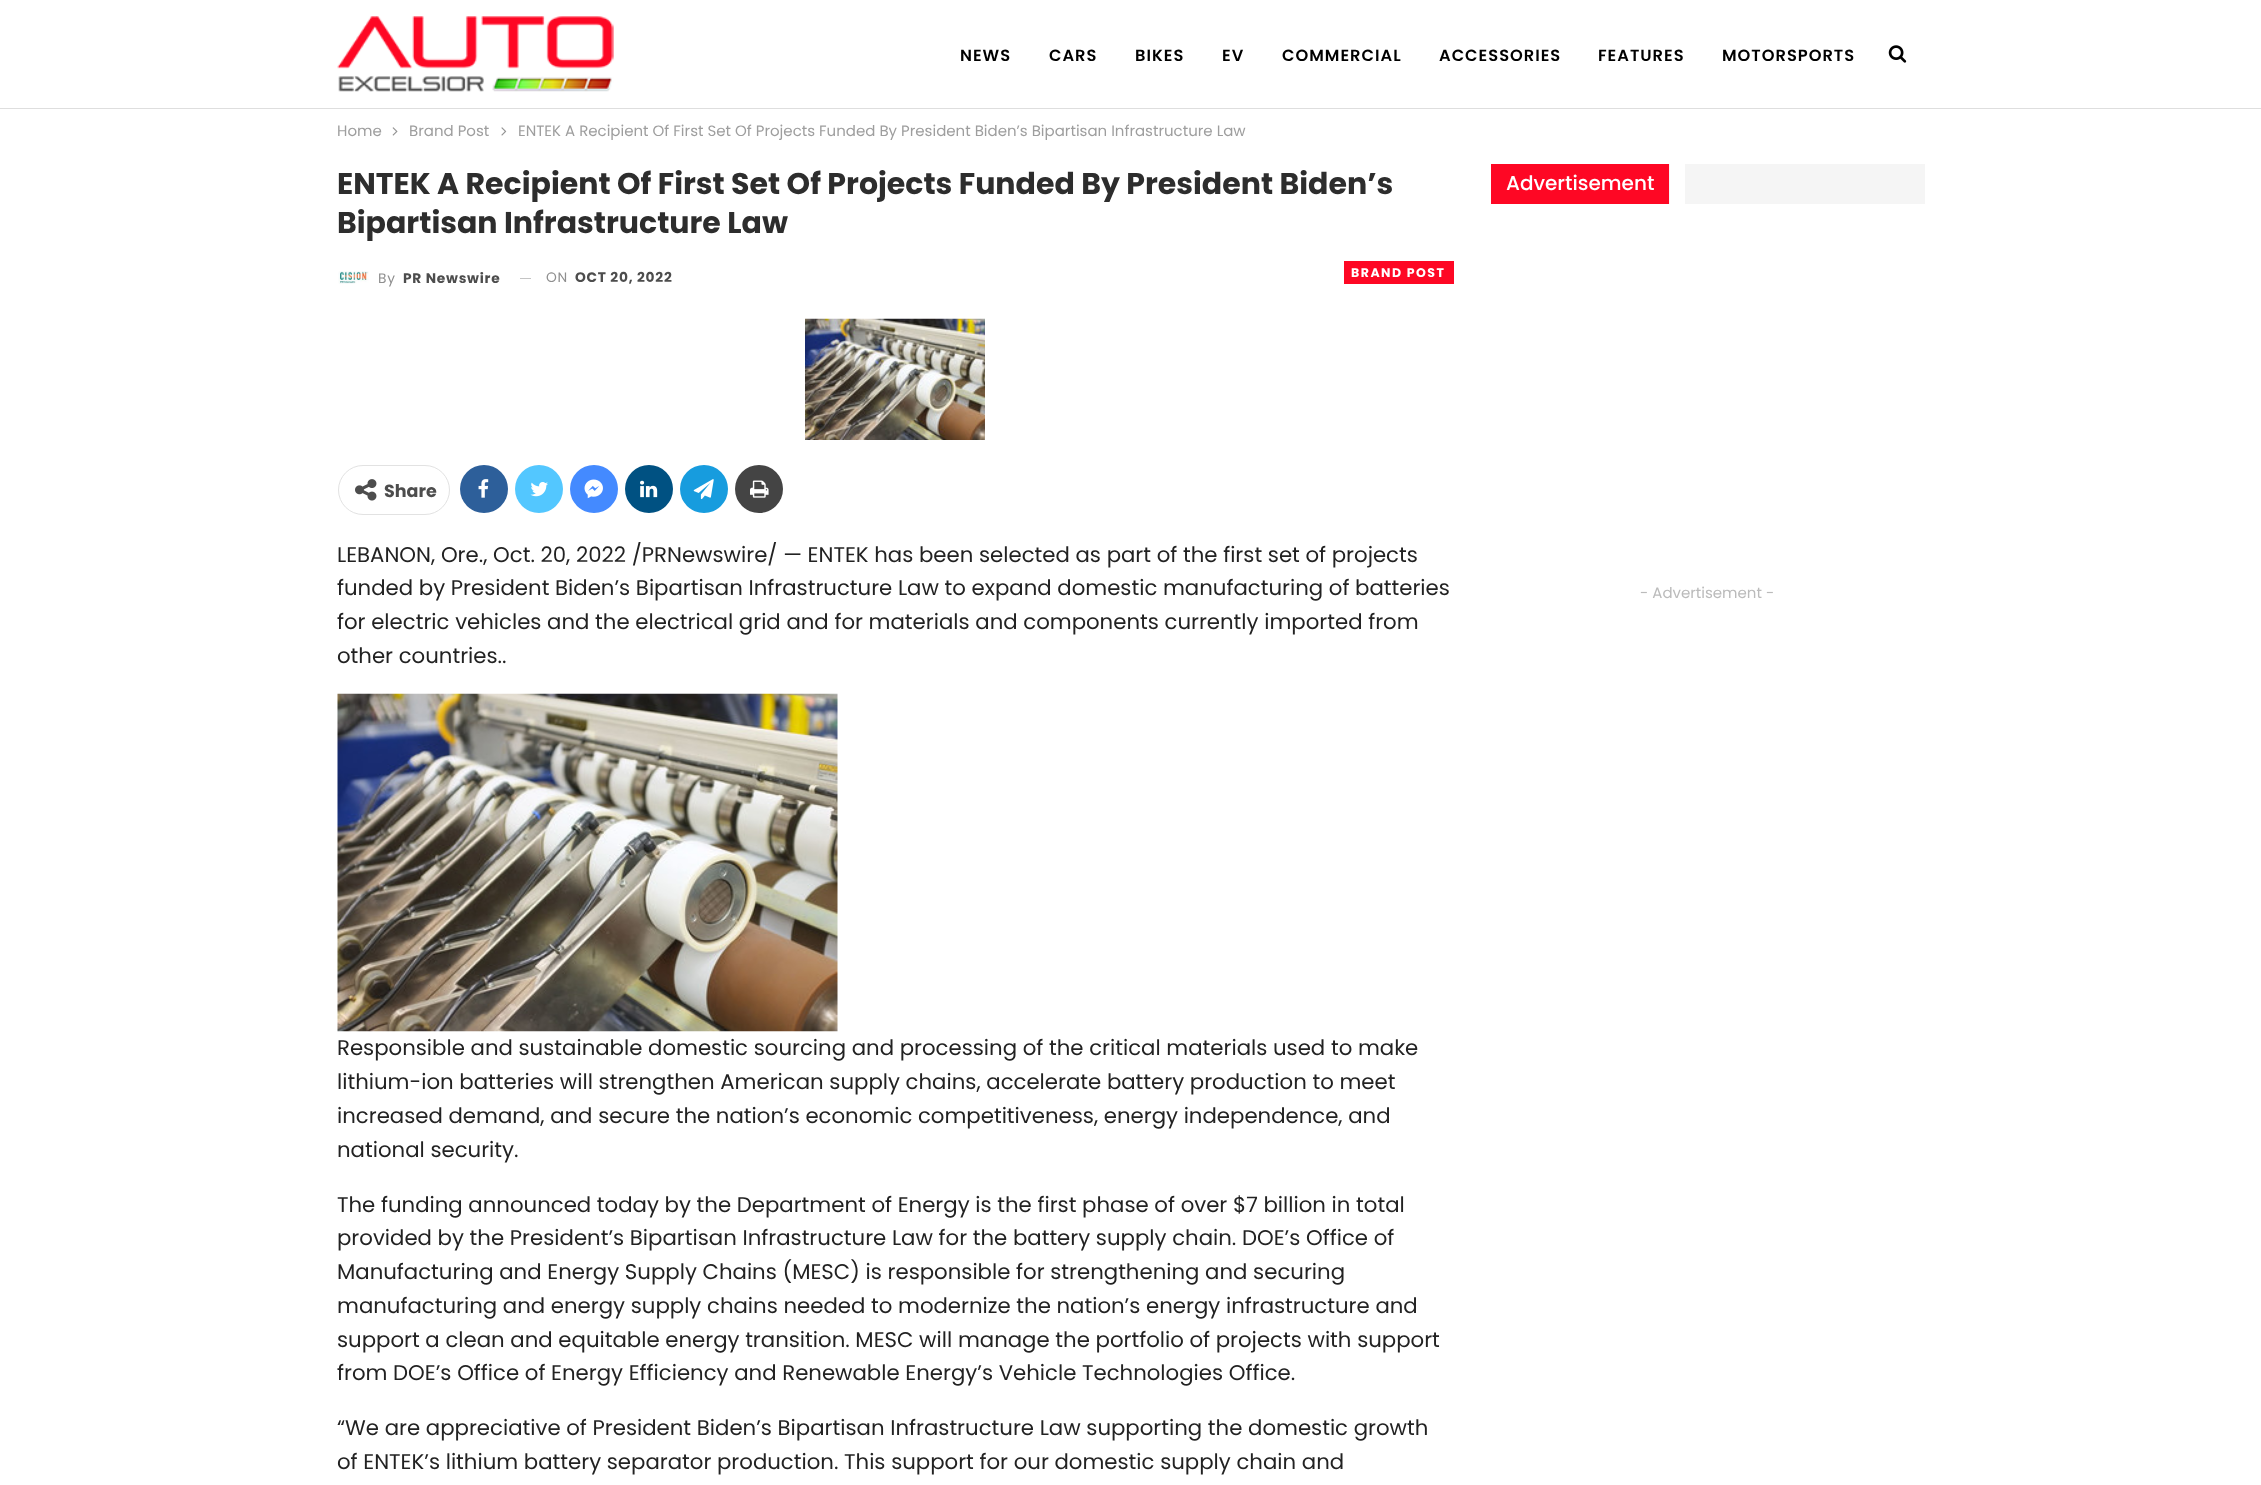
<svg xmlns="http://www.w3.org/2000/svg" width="2261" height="1485">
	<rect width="100%" height="100%" fill="#FFFFFF" />
	<rect x="0" y="108" width="2261" height="1" fill="#DEDEDE" />
	<image x="337" y="16" width="277" height="76" href="assets/img1.png" />
	<g font-family="Poppins" font-size="16.25" font-weight="600" letter-spacing="1" fill="#000000">
		<text x="960" y="61">NEWS</text>
		<text x="1049" y="61">CARS</text>
		<text x="1135" y="61">BIKES</text>
		<text x="1222" y="61">EV</text>
		<text x="1282" y="61">COMMERCIAL</text>
		<text x="1439" y="61">ACCESSORIES</text>
		<text x="1598" y="61">FEATURES</text>
		<text x="1722" y="61">MOTORSPORTS</text>
	</g>
	<image x="1888" y="45" width="19" height="18" href="assets/img2.png" />
	<text x="337" y="136" font-family="Poppins" font-size="15" fill="#9E9E9E">Home</text>
	<image x="392" y="127" width="6" height="9" href="assets/img3.png" />
	<text x="409" y="136" font-family="Poppins" font-size="15" fill="#9E9E9E">Brand Post</text>
	<image x="501" y="127" width="6" height="9" href="assets/img4.png" />
	<text x="518" y="136" font-family="Poppins" font-size="15" fill="#9E9E9E">ENTEK A Recipient Of First Set Of Projects Funded By President Biden’s Bipartisan Infrastructure Law</text>
	<g font-family="Poppins" font-size="30" font-weight="700" fill="#2D2D2D">
		<text x="337" y="194">ENTEK A Recipient Of First Set Of Projects Funded By President Biden’s</text>
		<text x="337" y="233">Bipartisan Infrastructure Law</text>
	</g>
	<image x="338" y="271" width="31" height="13" href="assets/img5.png" />
	<text x="378" y="283" font-family="Poppins" font-size="13.75" letter-spacing="0.75" fill="#8F8F8F">By</text>
	<text x="403" y="283" font-family="Poppins" font-size="13.75" font-weight="700" letter-spacing="0.75" fill="#4D4D4D">PR Newswire</text>
	<rect x="520" y="278" width="11" height="1" fill="#C4C4C4" />
	<text x="546" y="282" font-family="Poppins" font-size="13.75" letter-spacing="0.75" fill="#8F8F8F">ON</text>
	<text x="575" y="282" font-family="Poppins" font-size="13.75" font-weight="700" letter-spacing="0.75" fill="#4D4D4D">OCT 20, 2022</text>
	<rect x="1344" y="261" width="110" height="23" fill="#FE0724" />
	<text x="1351" y="277" font-family="Poppins" font-size="12.5" font-weight="700" letter-spacing="1.5" fill="#FFFFFF">BRAND POST</text>
	<image x="805" y="318" width="180" height="122" href="assets/img6.png" />
	<rect x="338.5" y="465.5" width="111" height="49" rx="24.5" fill="none" stroke="#E2E2E2" />
	<image x="355" y="479" width="22" height="22" href="assets/img7.png" />
	<text x="384" y="497" font-family="Poppins" font-size="17.5" font-weight="700" fill="#4D4D4D">Share</text>
	<circle cx="484" cy="489" r="24" fill="#2D5F9A" />
	<image x="478" y="479" width="11" height="19" href="assets/img8.png" />
	<circle cx="539" cy="489" r="24" fill="#53C7FF" />
	<image x="530" y="482" width="18" height="15" href="assets/img9.png" />
	<circle cx="594" cy="489" r="24" fill="#448AFF" />
	<image x="584" y="479" width="19" height="20" href="assets/img10.png" />
	<circle cx="649" cy="489" r="24" fill="#005182" />
	<image x="640" y="480" width="18" height="18" href="assets/img11.png" />
	<circle cx="704" cy="489" r="24" fill="#179CDE" />
	<image x="693" y="479" width="21" height="21" href="assets/img12.png" />
	<circle cx="759" cy="489" r="24" fill="#444444" />
	<image x="750" y="480" width="19" height="18" href="assets/img13.png" />
	<g font-family="Poppins" font-size="21.25" fill="#222222">
		<text x="337" y="562">LEBANON, Ore., Oct. 20, 2022 /PRNewswire/ — ENTEK has been selected as part of the first set of projects</text>
		<text x="337" y="595">funded by President Biden’s Bipartisan Infrastructure Law to expand domestic manufacturing of batteries</text>
		<text x="337" y="629">for electric vehicles and the electrical grid and for materials and components currently imported from</text>
		<text x="337" y="663">other countries..</text>
	</g>
	<image x="337" y="693" width="501" height="339" href="assets/img14.png" />
	<g font-family="Poppins" font-size="21.25" fill="#222222">
		<text x="337" y="1055">Responsible and sustainable domestic sourcing and processing of the critical materials used to make</text>
		<text x="337" y="1089">lithium-ion batteries will strengthen American supply chains, accelerate battery production to meet</text>
		<text x="337" y="1123">increased demand, and secure the nation’s economic competitiveness, energy independence, and</text>
		<text x="337" y="1157">national security.</text>
		<text x="337" y="1212">The funding announced today by the Department of Energy is the first phase of over $7 billion in total</text>
		<text x="337" y="1245">provided by the President’s Bipartisan Infrastructure Law for the battery supply chain. DOE’s Office of</text>
		<text x="337" y="1279">Manufacturing and Energy Supply Chains (MESC) is responsible for strengthening and securing</text>
		<text x="337" y="1313">manufacturing and energy supply chains needed to modernize the nation’s energy infrastructure and</text>
		<text x="337" y="1347">support a clean and equitable energy transition. MESC will manage the portfolio of projects with support</text>
		<text x="337" y="1380">from DOE’s Office of Energy Efficiency and Renewable Energy’s Vehicle Technologies Office.</text>
		<text x="337" y="1435">“We are appreciative of President Biden’s Bipartisan Infrastructure Law supporting the domestic growth</text>
		<text x="337" y="1469">of ENTEK’s lithium battery separator production. This support for our domestic supply chain and</text>
	</g>
	<rect x="1491" y="164" width="178" height="40" fill="#FE0724" />
	<text x="1506" y="190" font-family="Poppins" font-size="20" font-weight="500" fill="#FFFFFF">Advertisement</text>
	<rect x="1669" y="164" width="256" height="40" fill="#F5F5F5" />
	<rect x="1670" y="164" width="15" height="40" fill="#FFFFFF" />
	<text x="1640" y="598" font-family="Poppins" font-size="15" fill="#BBBBBB">- Advertisement -</text>
</svg>
